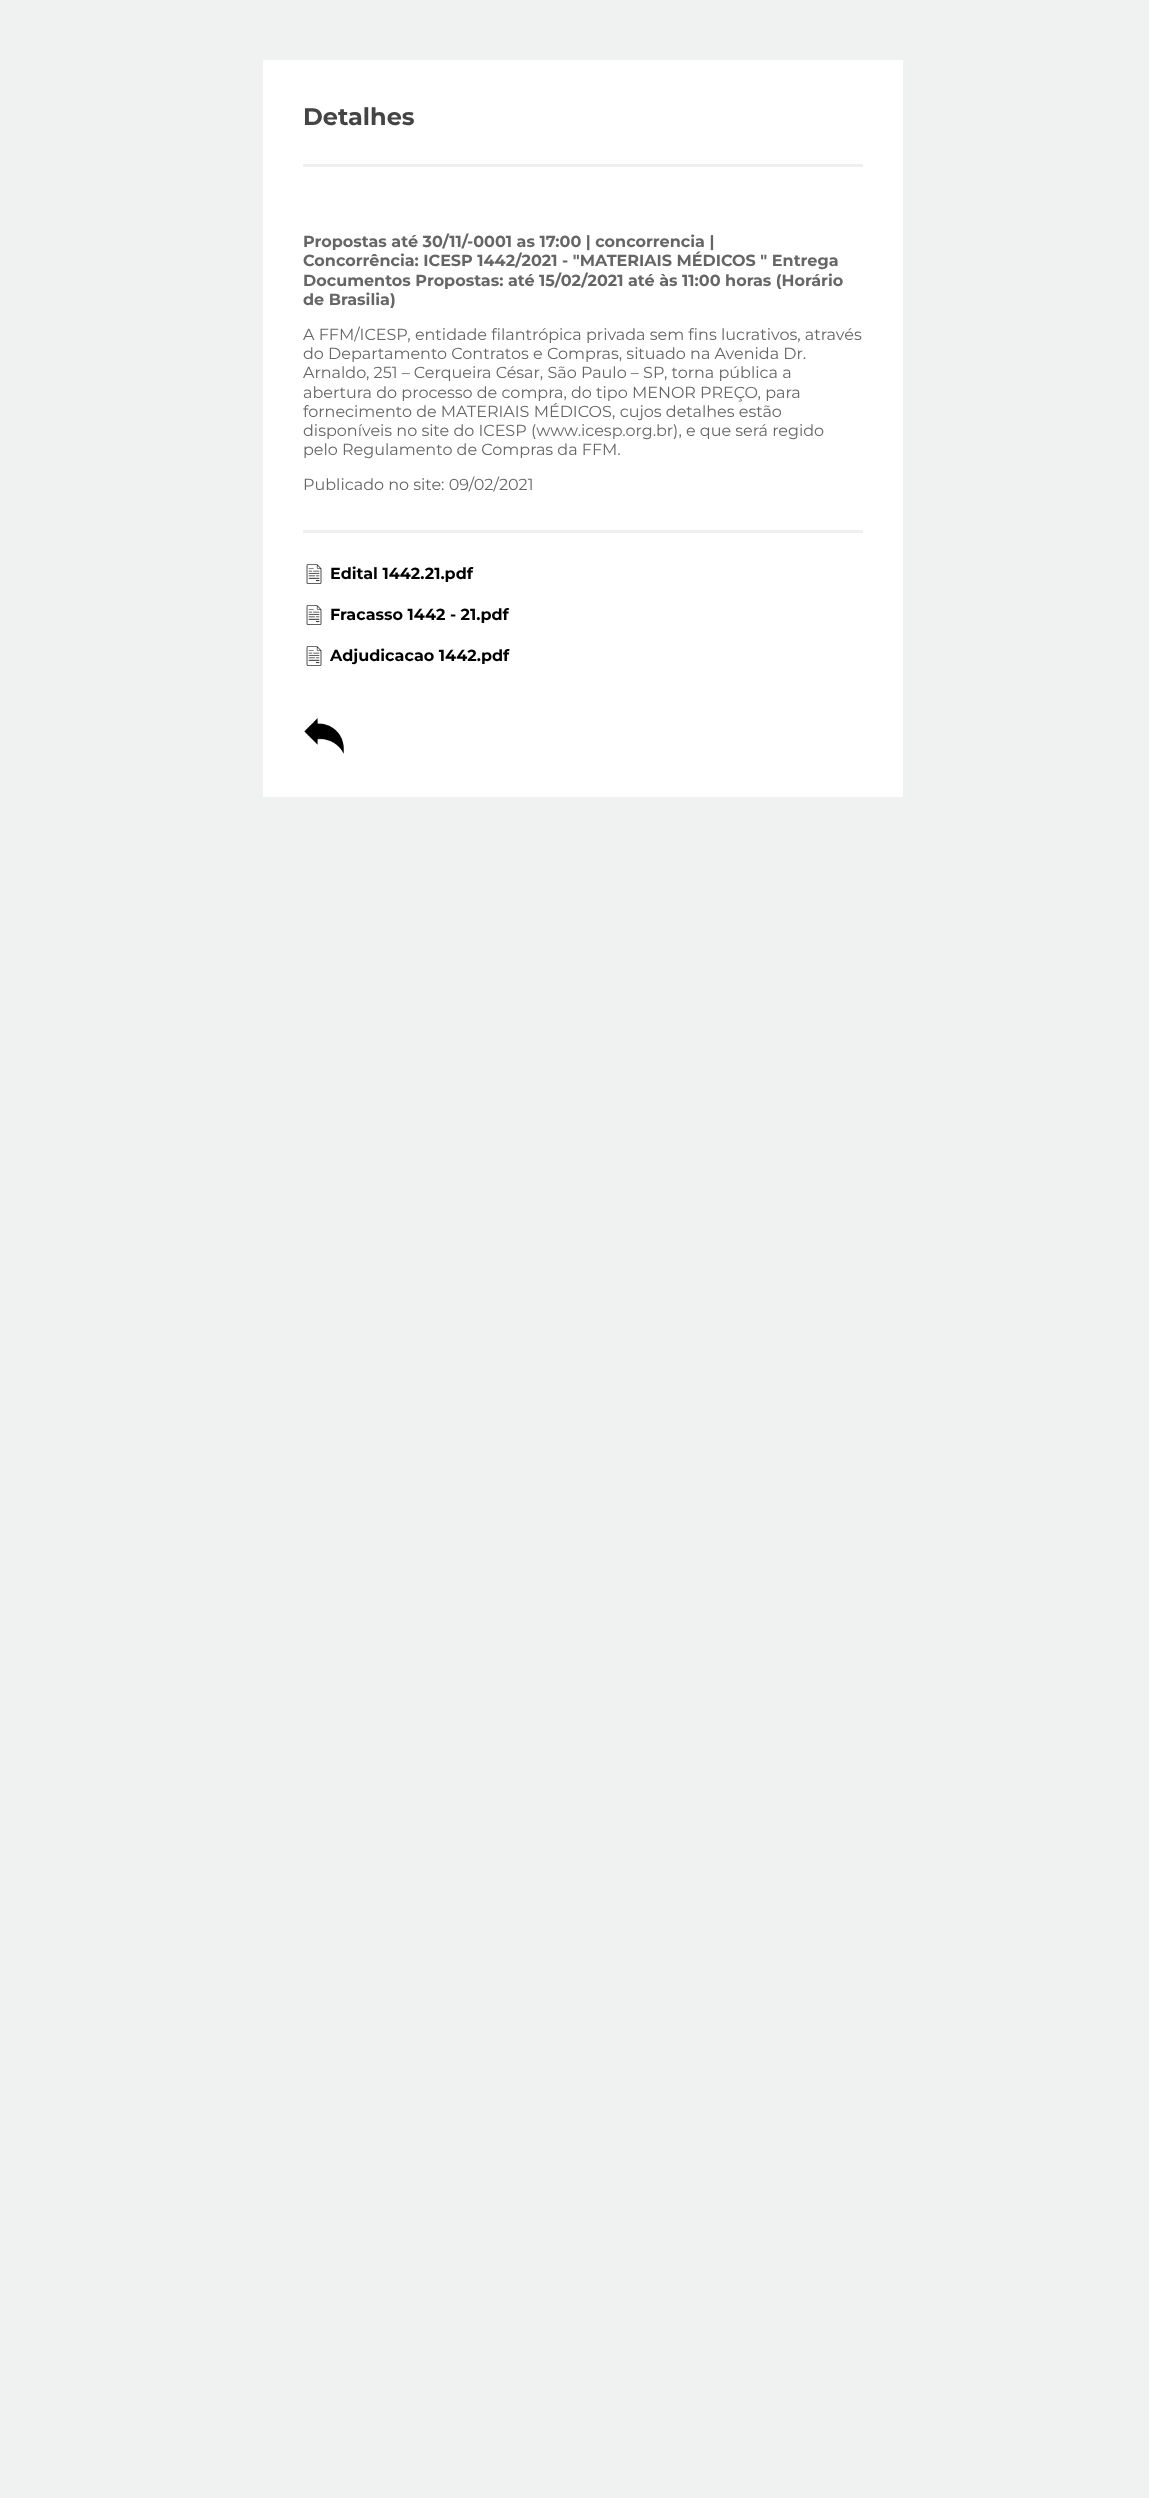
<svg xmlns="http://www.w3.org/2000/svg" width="1149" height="2498">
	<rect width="100%" height="100%" fill="#F0F1F1" />
	<rect x="263" y="60" width="640" height="737" fill="#FFFFFF" />
	<rect x="303" y="164" width="560" height="3" fill="#EFEFEF" />
	<text x="303" y="125" font-family="Montserrat" font-size="24" font-weight="700" fill="#444444">Detalhes</text>
	<g font-family="Montserrat" font-size="16" font-weight="700" fill="#666666">
		<text x="303" y="247">Propostas até 30/11/-0001 as 17:00 | concorrencia |</text>
		<text x="303" y="266">Concorrência: ICESP 1442/2021 - "MATERIAIS MÉDICOS " Entrega</text>
		<text x="303" y="286">Documentos Propostas: até 15/02/2021 até às 11:00 horas (Horário</text>
		<text x="303" y="305">de Brasilia)</text>
	</g>
	<g font-family="Montserrat" font-size="16" fill="#666666">
		<text x="303" y="340">A FFM/ICESP, entidade filantrópica privada sem fins lucrativos, através</text>
		<text x="303" y="359">do Departamento Contratos e Compras, situado na Avenida Dr.</text>
		<text x="303" y="378">Arnaldo, 251 – Cerqueira César, São Paulo – SP, torna pública a</text>
		<text x="303" y="398">abertura do processo de compra, do tipo MENOR PREÇO, para</text>
		<text x="303" y="417">fornecimento de MATERIAIS MÉDICOS, cujos detalhes estão</text>
		<text x="303" y="436">disponíveis no site do ICESP (www.icesp.org.br), e que será regido</text>
		<text x="303" y="455">pelo Regulamento de Compras da FFM.</text>
		<text x="303" y="490">Publicado no site: 09/02/2021</text>
	</g>
	<rect x="303" y="530" width="560" height="3" fill="#EFEFEF" />
	<image x="306" y="564" width="16" height="20" href="assets/img1.png" />
	<text x="330" y="579" font-family="Montserrat" font-size="16" font-weight="700" fill="#000000">Edital 1442.21.pdf</text>
	<image x="306" y="605" width="16" height="20" href="assets/img1.png" />
	<text x="330" y="620" font-family="Montserrat" font-size="16" font-weight="700" fill="#000000">Fracasso 1442 - 21.pdf</text>
	<image x="306" y="646" width="16" height="20" href="assets/img1.png" />
	<text x="330" y="661" font-family="Montserrat" font-size="16" font-weight="700" fill="#000000">Adjudicacao 1442.pdf</text>
	<image x="304" y="718" width="40" height="36" href="assets/img2.png" />
</svg>
